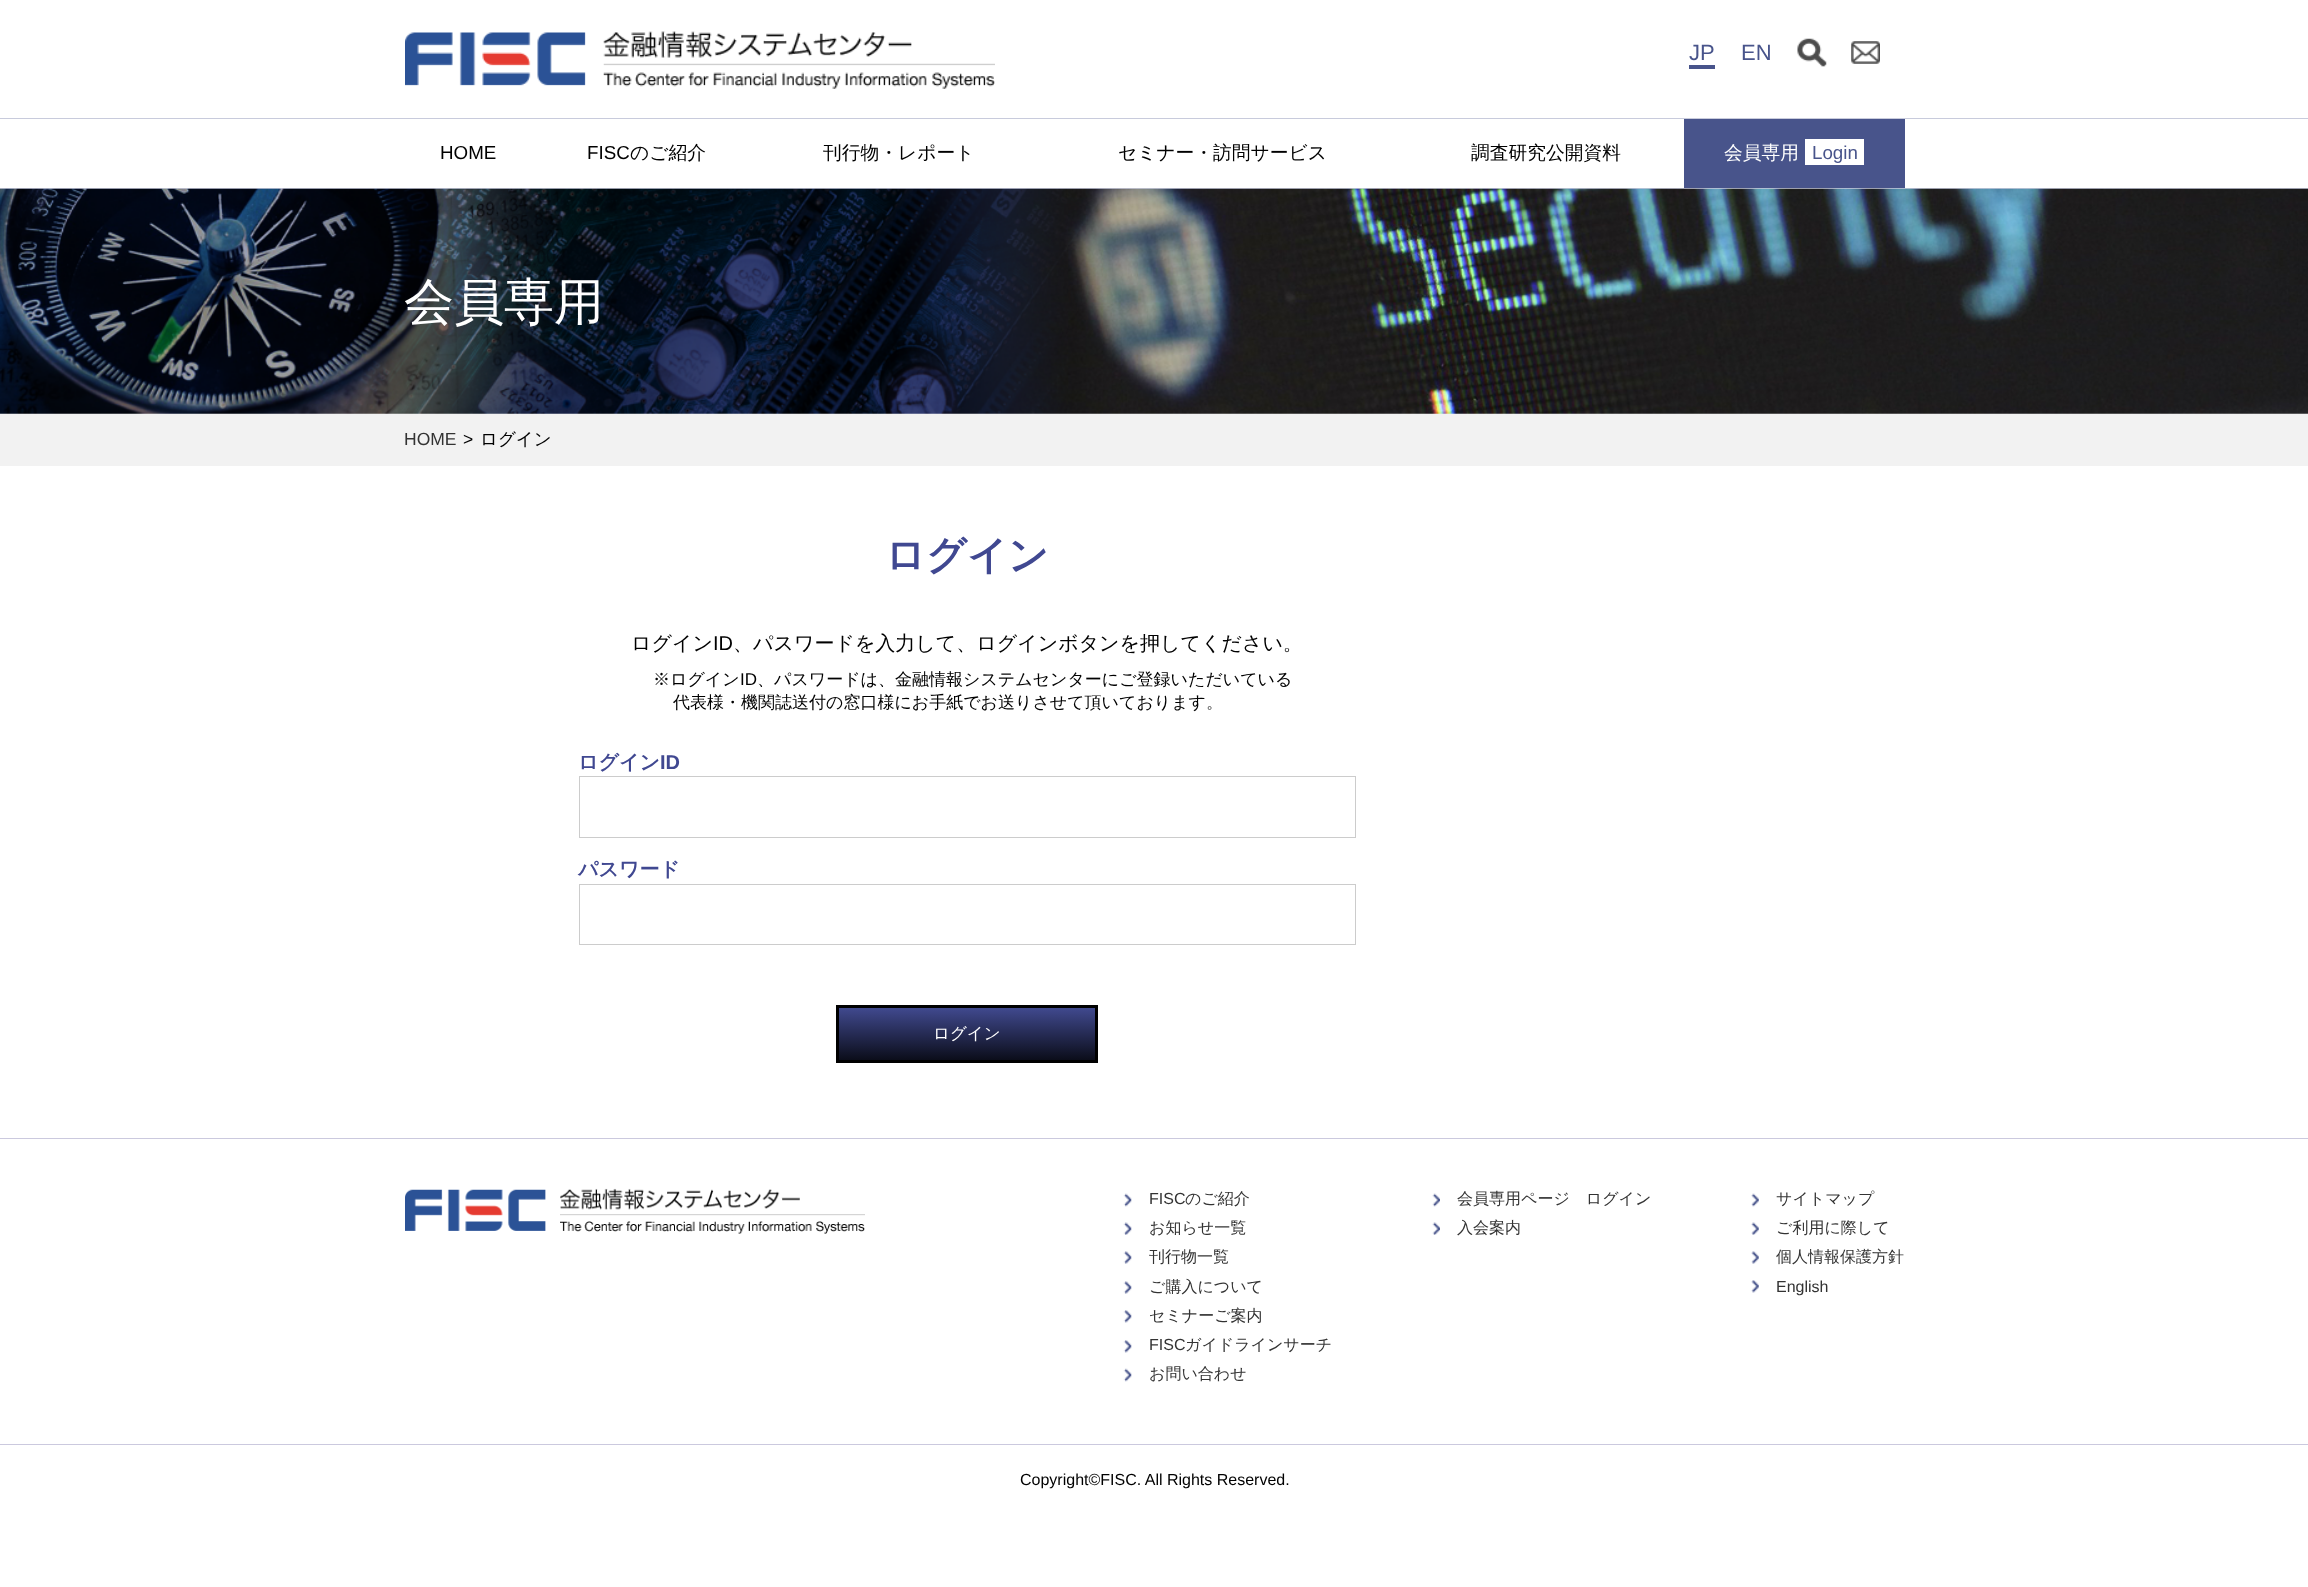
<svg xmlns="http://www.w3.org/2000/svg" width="2308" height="1587">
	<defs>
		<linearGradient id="g1" gradientUnits="userSpaceOnUse" x1="967" y1="1008" x2="967" y2="1060"><stop offset="0" stop-color="#40498E" /><stop offset="1" stop-color="#0B0D1A" /></linearGradient>
	</defs>
	<rect width="100%" height="100%" fill="#FFFFFF" />
	<image x="405" y="31" width="590" height="58" href="assets/img1.png" />
	<text x="1689" y="60" font-family="Liberation Sans" font-size="22" fill="#48548B">JP</text>
	<rect x="1689" y="65" width="26" height="4" fill="#48548B" />
	<text x="1741" y="60" font-family="Liberation Sans" font-size="22" fill="#48548B">EN</text>
	<image x="1797" y="38" width="30" height="29" href="assets/img2.png" />
	<image x="1851" y="41" width="29" height="23" href="assets/img3.png" />
	<rect x="0" y="118" width="2308" height="1" fill="#C8CBDC" />
	<rect x="0" y="188" width="2308" height="1" fill="#C8CBDC" />
	<g font-family="Liberation Sans" font-size="18.75" fill="#000000">
		<text x="440" y="159">HOME</text>
		<text x="587" y="159">FISC</text>
	</g>
	<g font-family="WenQuanYi Zen Hei" font-size="18.75" font-weight="500" fill="#000000">
		<text x="630" y="159">のご紹介</text>
		<text x="823" y="159">刊行物・レポート</text>
		<text x="1118" y="159">セミナー・訪問サービス</text>
		<text x="1471" y="159">調査研究公開資料</text>
	</g>
	<rect x="1684" y="119" width="221" height="69" fill="#48548B" />
	<text x="1724" y="159" font-family="WenQuanYi Zen Hei" font-size="18.75" font-weight="500" fill="#FFFFFF">会員専用</text>
	<rect x="1805" y="139" width="59" height="26" fill="#FFFFFF" />
	<text x="1812" y="159" font-family="Liberation Sans" font-size="18.75" fill="#48548B">Login</text>
	<image x="0" y="188" width="2308" height="226" href="assets/img4.png" />
	<text x="404" y="319" font-family="WenQuanYi Zen Hei" font-size="50" font-weight="500" fill="#FFFFFF">会員専用</text>
	<rect x="0" y="414" width="2308" height="52" fill="#F2F2F2" />
	<text x="404" y="445" font-family="Liberation Sans" font-size="17.5" fill="#333333">HOME</text>
	<text x="463" y="445" font-family="Liberation Sans" font-size="17.5" fill="#000000">&gt;</text>
	<text x="480" y="445" font-family="WenQuanYi Zen Hei" font-size="17.5" font-weight="500" fill="#000000">ログイン</text>
	<text x="885" y="569" font-family="WenQuanYi Zen Hei" font-size="40" font-weight="700" fill="#404891">ログイン</text>
	<text x="631" y="650" font-family="WenQuanYi Zen Hei" font-size="20" font-weight="500" fill="#000000">ログイン</text>
	<text x="713" y="650" font-family="Liberation Sans" font-size="20" fill="#000000">ID</text>
	<text x="733" y="650" font-family="WenQuanYi Zen Hei" font-size="20" font-weight="500" fill="#000000">、パスワードを入力して、ログインボタンを押してください。</text>
	<text x="653" y="685" font-family="WenQuanYi Zen Hei" font-size="17" font-weight="500" fill="#000000">※ログイン</text>
	<text x="740" y="685" font-family="Liberation Sans" font-size="17" fill="#000000">ID</text>
	<g font-family="WenQuanYi Zen Hei" font-size="17" font-weight="500" fill="#000000">
		<text x="757" y="685">、パスワードは、金融情報システムセンターにご登録いただいている</text>
		<text x="673" y="708">代表様・機関誌送付の窓口様にお手紙でお送りさせて頂いております。</text>
	</g>
	<text x="578" y="769" font-family="WenQuanYi Zen Hei" font-size="20" font-weight="700" fill="#404891">ログイン</text>
	<text x="660" y="769" font-family="Liberation Sans" font-size="20" font-weight="700" fill="#404891">ID</text>
	<rect x="579.5" y="776.5" width="776" height="61" fill="none" stroke="#CCCCCC" />
	<text x="578" y="876" font-family="WenQuanYi Zen Hei" font-size="20" font-weight="700" fill="#404891">パスワード</text>
	<rect x="579.5" y="884.5" width="776" height="60" fill="none" stroke="#CCCCCC" />
	<rect x="839" y="1008" width="256" height="52" fill="url(#g1)" />
	<rect x="837.5" y="1006.5" width="259" height="55" fill="none" stroke="#000000" stroke-width="3" />
	<text x="933" y="1039" font-family="WenQuanYi Zen Hei" font-size="16.5" font-weight="500" fill="#FFFFFF">ログイン</text>
	<rect x="0" y="1138" width="2308" height="1" fill="#CBC9DE" />
	<image x="405" y="1188" width="460" height="46" href="assets/img5.png" />
	<image x="1123" y="1193" width="9" height="14" href="assets/img6.png" />
	<text x="1149" y="1204" font-family="Liberation Sans" font-size="16" fill="#333333">FISC</text>
	<text x="1185" y="1204" font-family="WenQuanYi Zen Hei" font-size="16" font-weight="500" fill="#333333">のご紹介</text>
	<image x="1123" y="1222" width="9" height="13" href="assets/img7.png" />
	<text x="1149" y="1233" font-family="WenQuanYi Zen Hei" font-size="16" font-weight="500" fill="#333333">お知らせ一覧</text>
	<image x="1123" y="1251" width="9" height="13" href="assets/img8.png" />
	<text x="1149" y="1262" font-family="WenQuanYi Zen Hei" font-size="16" font-weight="500" fill="#333333">刊行物一覧</text>
	<image x="1123" y="1281" width="9" height="13" href="assets/img8.png" />
	<text x="1149" y="1292" font-family="WenQuanYi Zen Hei" font-size="16" font-weight="500" fill="#333333">ご購入について</text>
	<image x="1123" y="1310" width="9" height="13" href="assets/img9.png" />
	<text x="1149" y="1321" font-family="WenQuanYi Zen Hei" font-size="16" font-weight="500" fill="#333333">セミナーご案内</text>
	<image x="1123" y="1340" width="9" height="13" href="assets/img9.png" />
	<text x="1149" y="1350" font-family="Liberation Sans" font-size="16" fill="#333333">FISC</text>
	<text x="1185" y="1350" font-family="WenQuanYi Zen Hei" font-size="16" font-weight="500" fill="#333333">ガイドラインサーチ</text>
	<image x="1123" y="1368" width="9" height="14" href="assets/img6.png" />
	<text x="1149" y="1379" font-family="WenQuanYi Zen Hei" font-size="16" font-weight="500" fill="#333333">お問い合わせ</text>
	<image x="1432" y="1193" width="8" height="14" href="assets/img10.png" />
	<text x="1457" y="1204" font-family="WenQuanYi Zen Hei" font-size="16" font-weight="500" fill="#333333">会員専用ページ　ログイン</text>
	<image x="1432" y="1222" width="8" height="13" href="assets/img11.png" />
	<text x="1457" y="1233" font-family="WenQuanYi Zen Hei" font-size="16" font-weight="500" fill="#333333">入会案内</text>
	<image x="1751" y="1193" width="8" height="14" href="assets/img12.png" />
	<text x="1776" y="1204" font-family="WenQuanYi Zen Hei" font-size="16" font-weight="500" fill="#333333">サイトマップ</text>
	<image x="1751" y="1222" width="8" height="13" href="assets/img13.png" />
	<text x="1776" y="1233" font-family="WenQuanYi Zen Hei" font-size="16" font-weight="500" fill="#333333">ご利用に際して</text>
	<image x="1751" y="1251" width="8" height="13" href="assets/img14.png" />
	<text x="1776" y="1262" font-family="WenQuanYi Zen Hei" font-size="16" font-weight="500" fill="#333333">個人情報保護方針</text>
	<image x="1751" y="1280" width="8" height="13" href="assets/img15.png" />
	<text x="1776" y="1292" font-family="Liberation Sans" font-size="16" fill="#333333">English</text>
	<rect x="0" y="1444" width="2308" height="1" fill="#CBC9DE" />
	<text x="1020" y="1485" font-family="Liberation Sans" font-size="16" fill="#000000">Copyright©FISC. All Rights Reserved.</text>
</svg>
